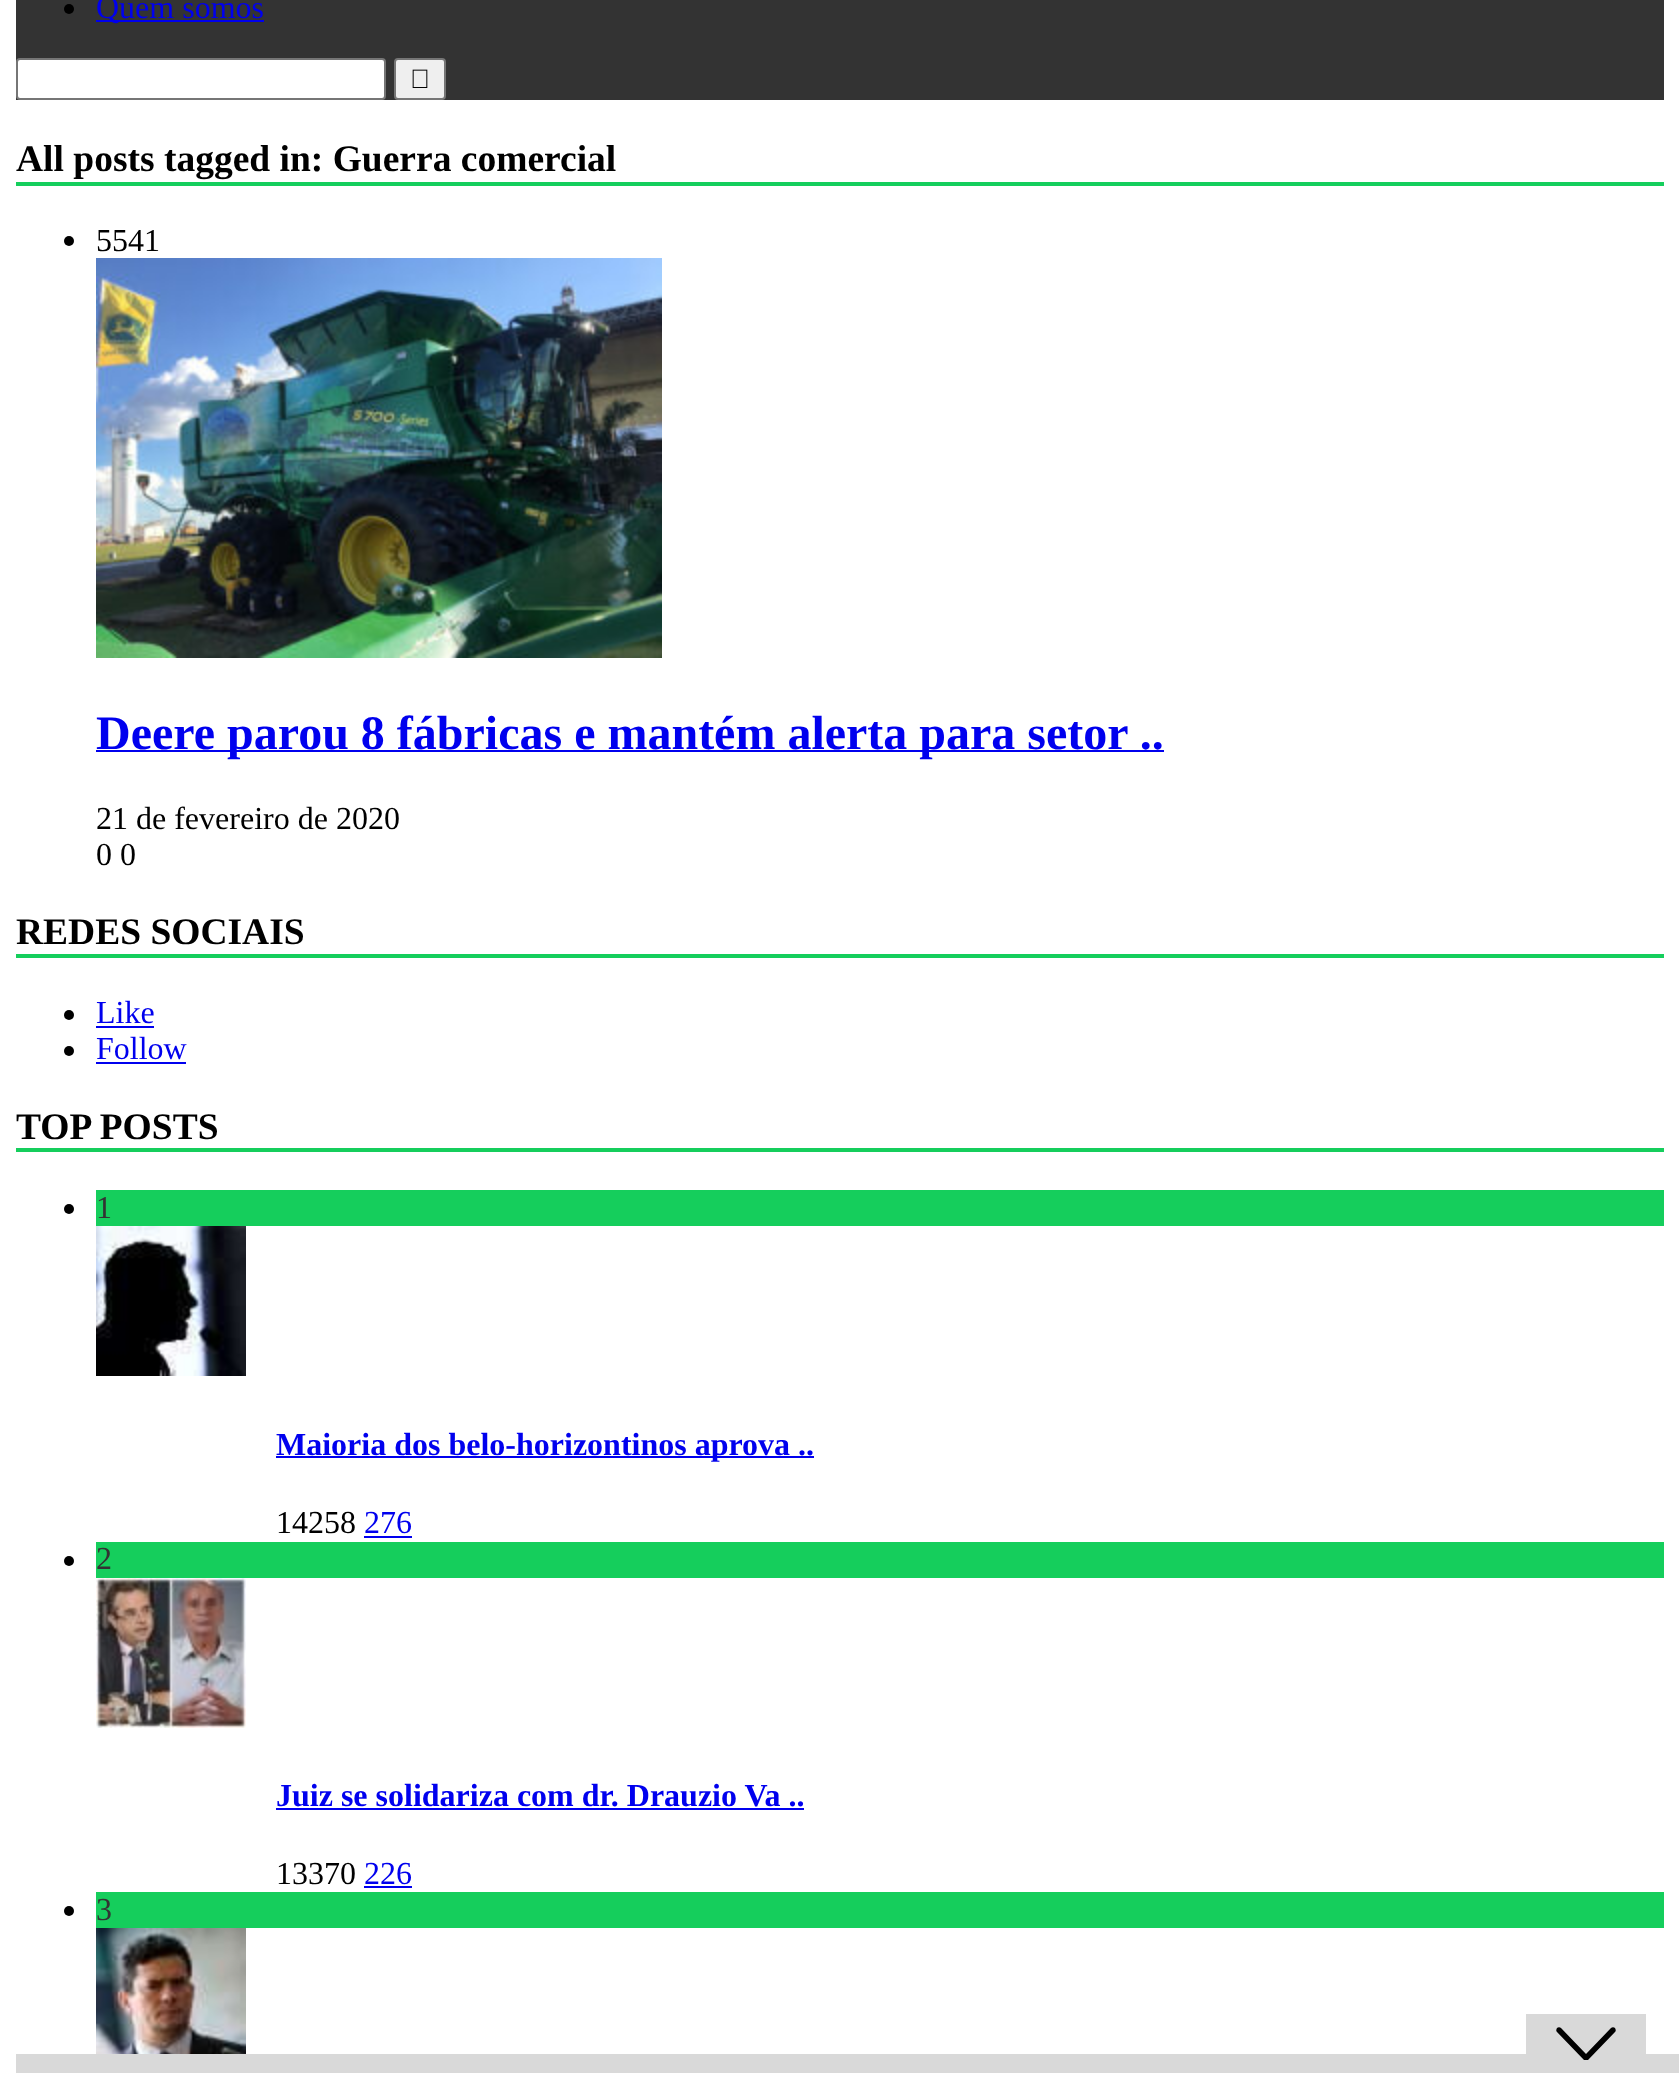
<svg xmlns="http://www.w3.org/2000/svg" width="1679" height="2073">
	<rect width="100%" height="100%" fill="#FFFFFF" />
	<rect x="16" y="0" width="1648" height="100" fill="#333333" />
	<circle cx="69" cy="9" r="5" fill="#000000" />
	<rect x="96" y="20" width="168" height="2" fill="#0000EE" />
	<text x="96" y="18" font-family="Liberation Serif" font-size="32" fill="#0000EE">Quem somos</text>
	<rect x="17" y="59" width="368" height="40" rx="3" fill="#FFFFFF" stroke="#767676" stroke-width="2" />
	<rect x="395" y="59" width="50" height="40" rx="3" fill="#EFEFEF" stroke="#767676" stroke-width="2" />
	<image x="412" y="69" width="16" height="19" href="assets/img1.png" />
	<rect x="16" y="182" width="1648" height="4" fill="#15CE5C" />
	<text x="16" y="171" font-family="Liberation Serif" font-size="37.5" font-weight="700" fill="#000000">All posts tagged in: Guerra comercial</text>
	<circle cx="69" cy="241" r="5" fill="#000000" />
	<text x="96" y="251" font-family="Liberation Serif" font-size="32" fill="#000000">5541</text>
	<image x="96" y="258" width="566" height="400" href="assets/img2.png" />
	<rect x="96" y="750" width="1068" height="2" fill="#0000EE" />
	<text x="96" y="749" font-family="Liberation Serif" font-size="48" font-weight="700" fill="#0000EE">Deere parou 8 fábricas e mantém alerta para setor ..</text>
	<g font-family="Liberation Serif" font-size="32" fill="#000000">
		<text x="96" y="829">21 de fevereiro de 2020</text>
		<text x="96" y="865">0 0</text>
	</g>
	<rect x="16" y="954" width="1648" height="4" fill="#15CE5C" />
	<text x="16" y="944" font-family="Liberation Serif" font-size="37.5" font-weight="700" fill="#000000">REDES SOCIAIS</text>
	<circle cx="69" cy="1015" r="5" fill="#000000" />
	<text x="96" y="1023" font-family="Liberation Serif" font-size="32" fill="#0000EE">Like</text>
	<rect x="96" y="1026" width="58" height="2" fill="#0000EE" />
	<circle cx="69" cy="1051" r="5" fill="#000000" />
	<text x="96" y="1059" font-family="Liberation Serif" font-size="32" fill="#0000EE">Follow</text>
	<rect x="96" y="1062" width="90" height="2" fill="#0000EE" />
	<rect x="16" y="1148" width="1648" height="4" fill="#15CE5C" />
	<text x="16" y="1139" font-family="Liberation Serif" font-size="37.5" font-weight="700" fill="#000000">TOP POSTS</text>
	<circle cx="69" cy="1209" r="5" fill="#000000" />
	<rect x="96" y="1190" width="1568" height="36" fill="#15CE5C" />
	<text x="96" y="1218" font-family="Liberation Serif" font-size="32" fill="#333333">1</text>
	<image x="96" y="1226" width="150" height="150" href="assets/img3.png" />
	<rect x="276" y="1456" width="538" height="2" fill="#0000EE" />
	<text x="276" y="1455" font-family="Liberation Serif" font-size="32" font-weight="700" fill="#0000EE">Maioria dos belo-horizontinos aprova ..</text>
	<text x="276" y="1533" font-family="Liberation Serif" font-size="32" fill="#000000">14258</text>
	<text x="364" y="1533" font-family="Liberation Serif" font-size="32" fill="#0000EE">276</text>
	<rect x="364" y="1536" width="48" height="2" fill="#0000EE" />
	<circle cx="69" cy="1561" r="5" fill="#000000" />
	<rect x="96" y="1542" width="1568" height="36" fill="#15CE5C" />
	<text x="96" y="1569" font-family="Liberation Serif" font-size="32" fill="#333333">2</text>
	<image x="96" y="1578" width="150" height="150" href="assets/img4.png" />
	<text x="276" y="1806" font-family="Liberation Serif" font-size="32" font-weight="700" fill="#0000EE">Juiz se solidariza com dr. Drauzio Va ..</text>
	<rect x="276" y="1808" width="528" height="2" fill="#0000EE" />
	<text x="276" y="1884" font-family="Liberation Serif" font-size="32" fill="#000000">13370</text>
	<text x="364" y="1884" font-family="Liberation Serif" font-size="32" fill="#0000EE">226</text>
	<rect x="364" y="1886" width="48" height="2" fill="#0000EE" />
	<circle cx="69" cy="1911" r="5" fill="#000000" />
	<rect x="96" y="1892" width="1568" height="36" fill="#15CE5C" />
	<text x="96" y="1920" font-family="Liberation Serif" font-size="32" fill="#333333">3</text>
	<image x="96" y="1928" width="150" height="126" href="assets/img5.png" />
	<rect x="16" y="2054" width="1663" height="19" fill="#D9D9D9" />
	<rect x="1526" y="2014" width="120" height="40" fill="#D9D9D9" />
	<path d="M1615 2028C1614 2027 1612 2027 1611 2028L1586 2054L1561 2028C1560 2027 1558 2027 1557 2028C1556 2030 1556 2031 1557 2032L1584 2060H1586H1588L1615 2032C1616 2031 1616 2030 1615 2028Z" fill="#000000" />
</svg>
